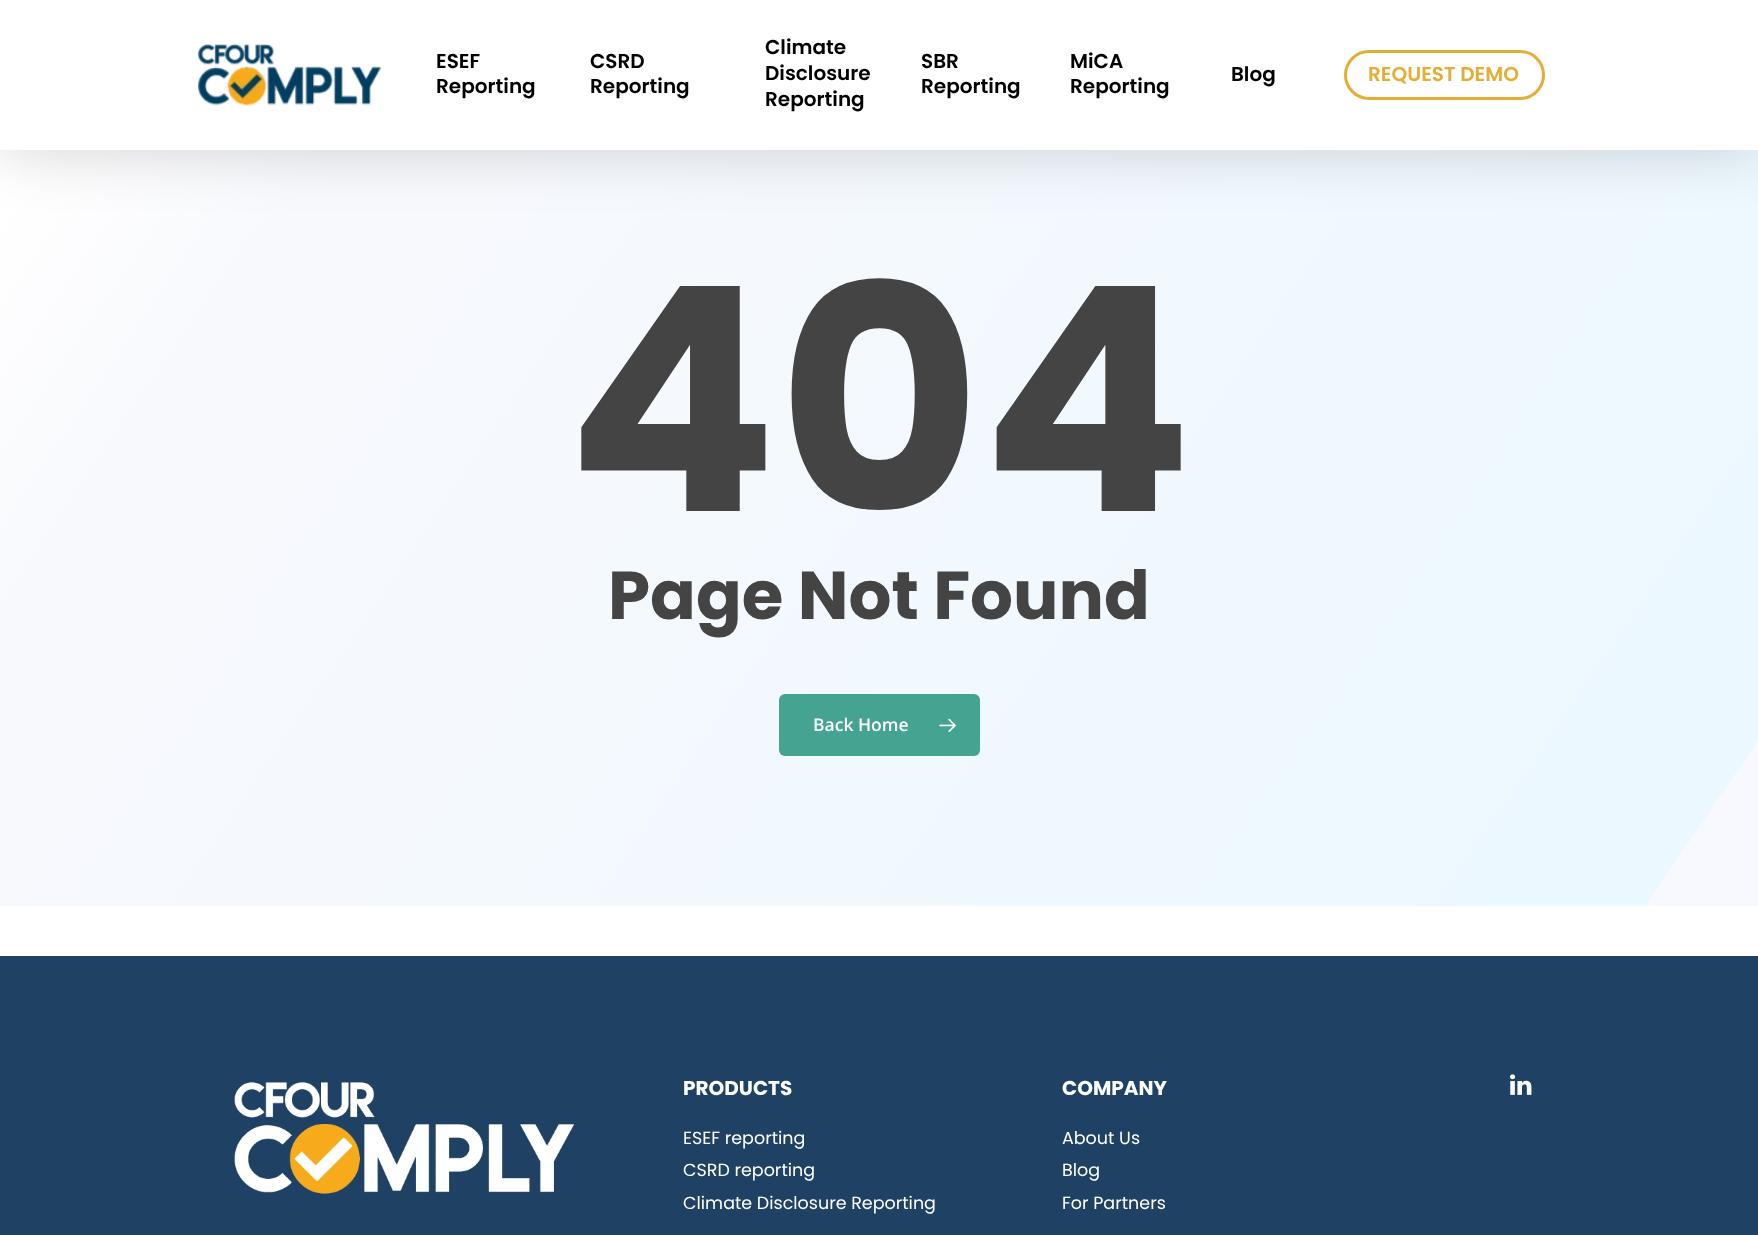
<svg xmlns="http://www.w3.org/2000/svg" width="1758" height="1235">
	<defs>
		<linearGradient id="g1" gradientUnits="userSpaceOnUse" x1="-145" y1="59" x2="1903" y2="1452"><stop offset="0.08" stop-color="#FFFFFF" /><stop offset="0.18" stop-color="#F8F9FD" /><stop offset="0.79" stop-color="#EBF8FF" /><stop offset="0.79" stop-color="#F7F9FF" /></linearGradient>
	</defs>
	<rect width="100%" height="100%" fill="#FFFFFF" />
	<rect x="0" y="150" width="1758" height="756" fill="url(#g1)" />
	<rect x="0" y="4" width="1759" height="150" fill="#000000" fill-opacity="0.15" filter="blur(28px)" />
	<rect x="0" y="0" width="1758" height="150" fill="#FFFFFF" />
	<image x="198" y="44" width="184" height="62" href="assets/img1.png" />
	<g font-family="Poppins" font-size="20" font-weight="600" fill="#000000">
		<text x="436" y="68">ESEF</text>
		<text x="436" y="93">Reporting</text>
		<text x="590" y="68">CSRD</text>
		<text x="590" y="93">Reporting</text>
		<text x="765" y="54">Climate</text>
		<text x="765" y="80">Disclosure</text>
		<text x="765" y="106">Reporting</text>
		<text x="921" y="68">SBR</text>
		<text x="921" y="93">Reporting</text>
		<text x="1070" y="68">MiCA</text>
		<text x="1070" y="93">Reporting</text>
		<text x="1231" y="81">Blog</text>
	</g>
	<rect x="1345.5" y="51.5" width="198" height="47" rx="23.5" fill="none" stroke="#E4AD35" stroke-width="3" />
	<text x="1368" y="81" font-family="Poppins" font-size="20" font-weight="600" fill="#E4AD35">REQUEST DEMO</text>
	<text x="566" y="511" font-family="Poppins" font-size="312.5" font-weight="700" fill="#444444">404</text>
	<text x="608" y="619" font-family="Poppins" font-size="67.5" font-weight="700" fill="#444444">Page Not Found</text>
	<rect x="779" y="694" width="201" height="62" rx="6" fill="#44A391" />
	<text x="813" y="731" font-family="Open Sans" font-size="17.5" font-weight="600" fill="#FFFFFF">Back Home</text>
	<image x="939" y="718" width="17" height="14" href="assets/img2.png" />
	<rect x="0" y="956" width="1758" height="279" fill="#1E4164" />
	<image x="234" y="1082" width="341" height="112" href="assets/img3.png" />
	<text x="683" y="1095" font-family="Poppins" font-size="20" font-weight="700" fill="#FFFFFF">PRODUCTS</text>
	<g font-family="Poppins" font-size="17.5" fill="#FFFFFF">
		<text x="683" y="1144">ESEF reporting</text>
		<text x="683" y="1176">CSRD reporting</text>
		<text x="683" y="1209">Climate Disclosure Reporting</text>
	</g>
	<text x="1062" y="1095" font-family="Poppins" font-size="20" font-weight="700" fill="#FFFFFF">COMPANY</text>
	<g font-family="Poppins" font-size="17.5" fill="#FFFFFF">
		<text x="1062" y="1144">About Us</text>
		<text x="1062" y="1176">Blog</text>
		<text x="1062" y="1209">For Partners</text>
	</g>
	<image x="1510" y="1074" width="22" height="21" href="assets/img4.png" />
</svg>
